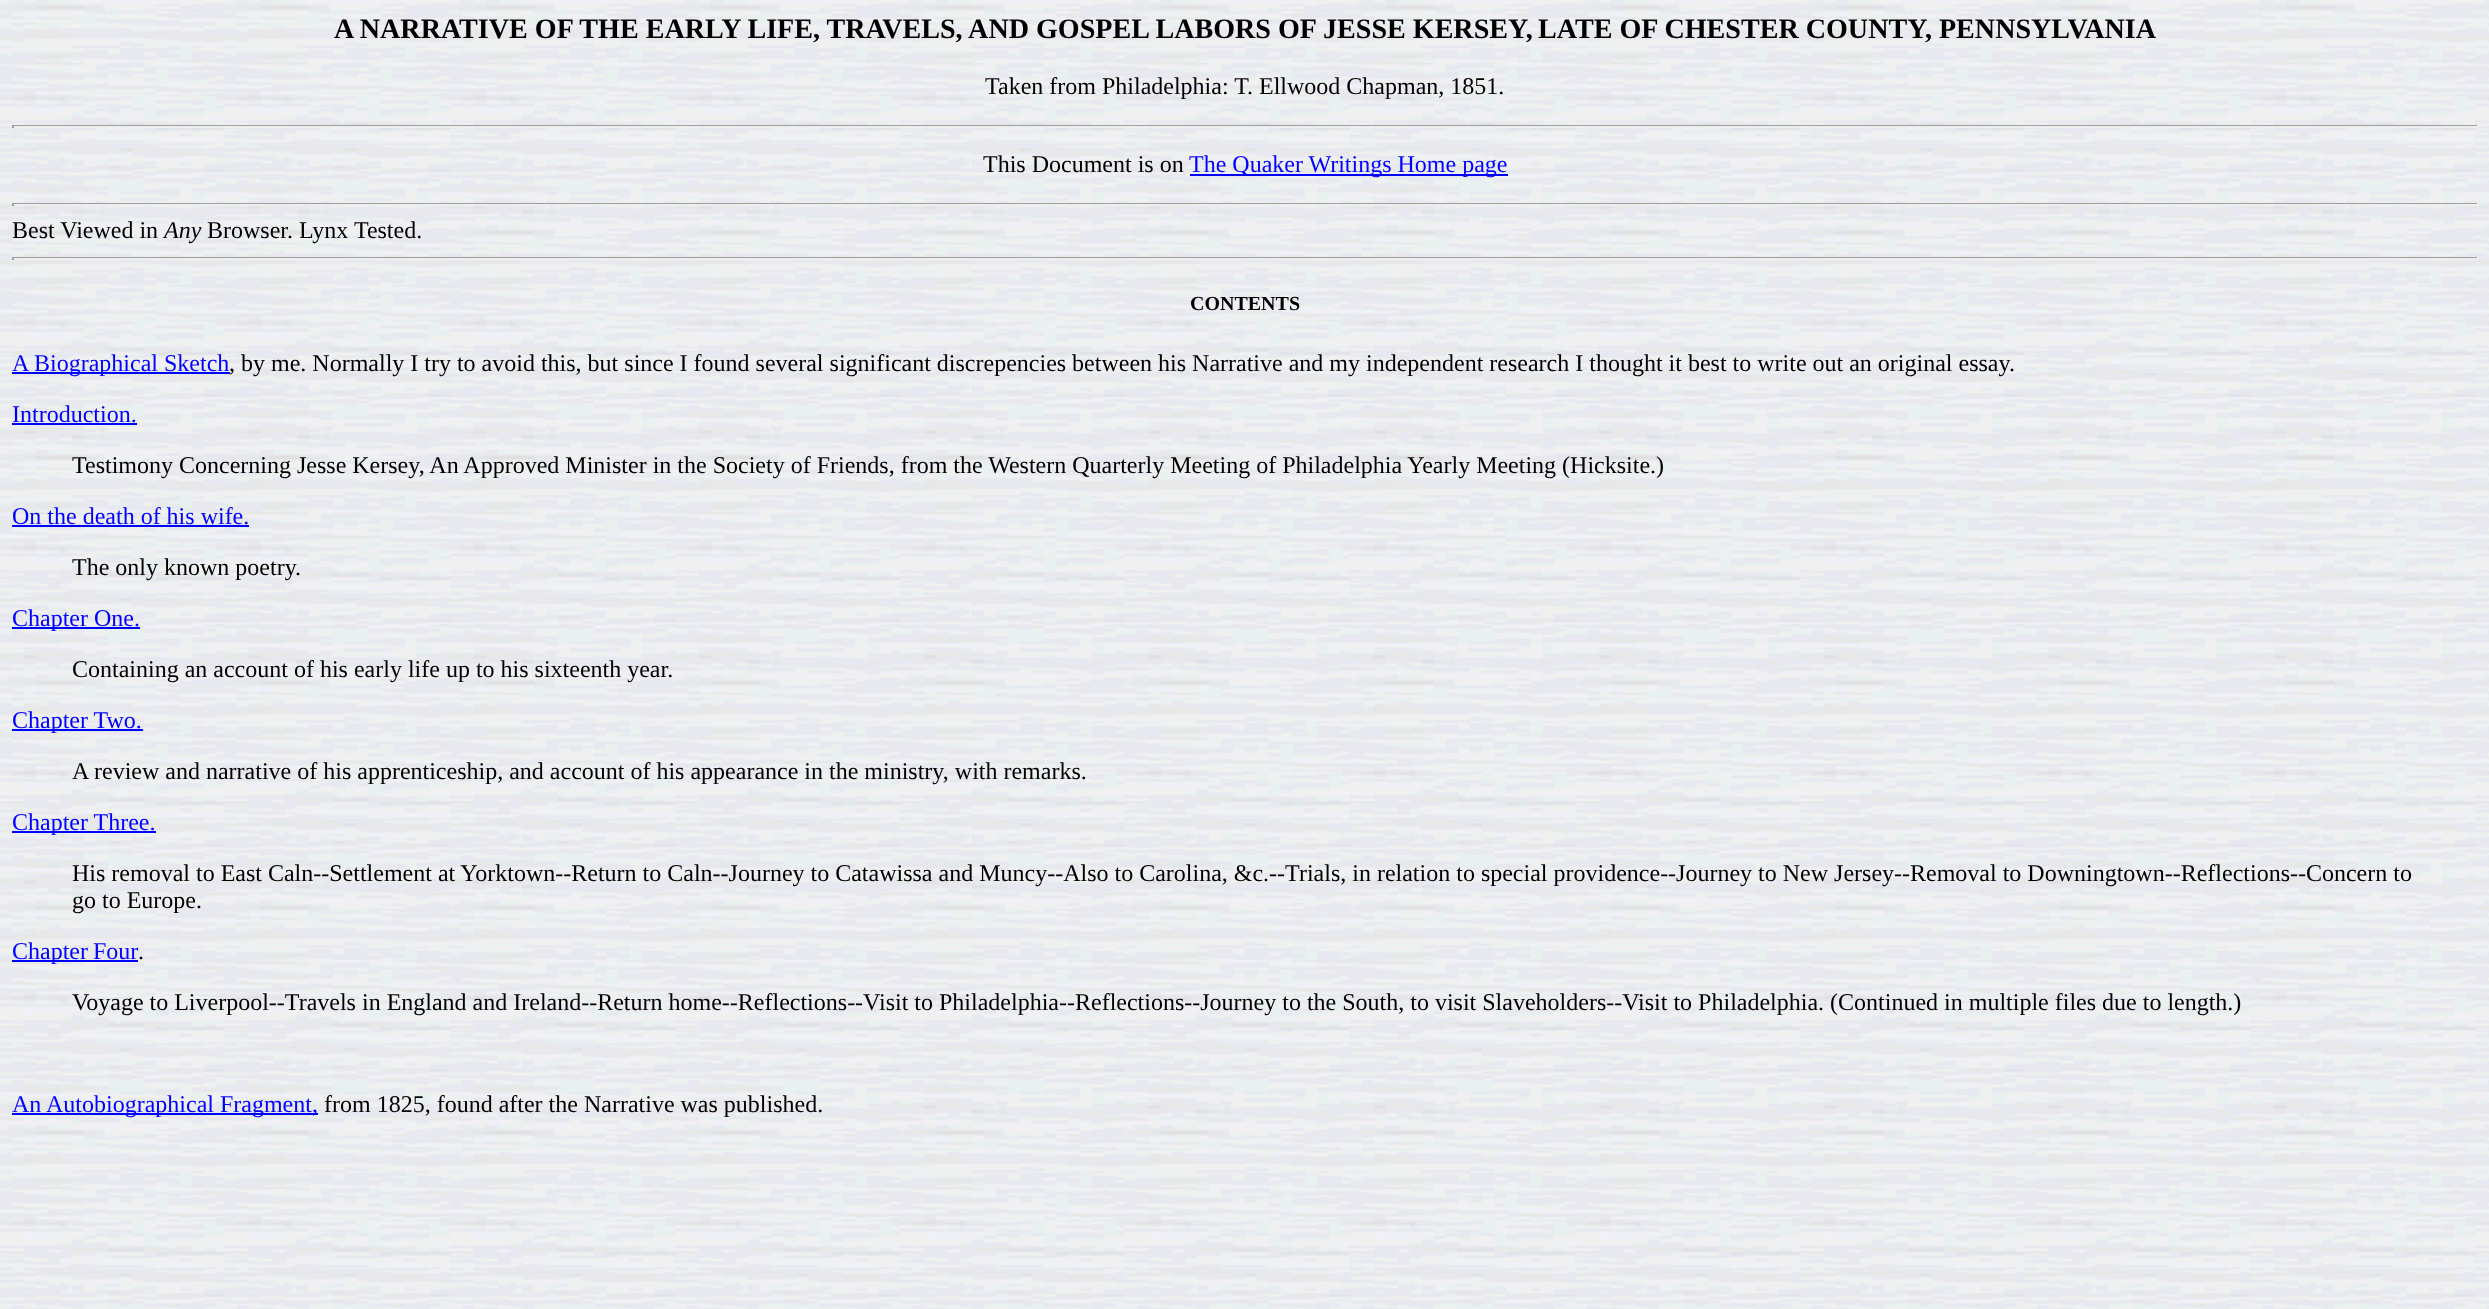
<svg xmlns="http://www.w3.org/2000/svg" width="2489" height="1309">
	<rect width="100%" height="100%" fill="#FFFFFF" />
	<image x="0" y="0" width="2489" height="1309" href="assets/img1.png" />
	<g font-family="Liberation Serif" font-size="28.1" font-weight="700" fill="#000000">
		<text x="334" y="38">A NARRATIVE OF THE EARLY LIFE, TRAVELS, AND GOSPEL LABORS OF JESSE KERSEY,</text>
		<text x="1538" y="38">LATE OF CHESTER COUNTY, PENNSYLVANIA</text>
	</g>
	<text x="985" y="94" font-family="Liberation Serif" font-size="24" fill="#000000">Taken from Philadelphia: T. Ellwood Chapman, 1851.</text>
	<rect x="12" y="125" width="2466" height="1" fill="#9F9F9F" />
	<rect x="2477" y="125" width="2" height="3" fill="#EEEEEE" />
	<rect x="12" y="126" width="2466" height="2" fill="#EEEEEE" />
	<rect x="12" y="125" width="2" height="3" fill="#9F9F9F" />
	<text x="983" y="172" font-family="Liberation Serif" font-size="24" fill="#000000">This Document is on</text>
	<rect x="1190" y="174" width="318" height="2" fill="#0000FF" />
	<text x="1189" y="172" font-family="Liberation Serif" font-size="24" fill="#0000FF">The Quaker Writings Home page</text>
	<rect x="12" y="203" width="2466" height="1" fill="#9F9F9F" />
	<rect x="2477" y="203" width="2" height="3" fill="#EEEEEE" />
	<rect x="12" y="204" width="2466" height="2" fill="#EEEEEE" />
	<rect x="12" y="203" width="2" height="3" fill="#9F9F9F" />
	<text x="12" y="238" font-family="Liberation Serif" font-size="24" fill="#000000">Best Viewed in</text>
	<text x="164" y="238" font-family="Liberation Serif" font-size="24" font-style="italic" fill="#000000">Any</text>
	<text x="207" y="238" font-family="Liberation Serif" font-size="24" fill="#000000">Browser. Lynx Tested.</text>
	<rect x="12" y="257" width="2466" height="1" fill="#9F9F9F" />
	<rect x="2477" y="257" width="2" height="3" fill="#EEEEEE" />
	<rect x="12" y="258" width="2466" height="2" fill="#EEEEEE" />
	<rect x="12" y="257" width="2" height="3" fill="#9F9F9F" />
	<text x="1190" y="310" font-family="Liberation Serif" font-size="20" font-weight="700" fill="#000000">CONTENTS</text>
	<rect x="12" y="372" width="218" height="2" fill="#0000FF" />
	<text x="12" y="371" font-family="Liberation Serif" font-size="24" fill="#0000FF">A Biographical Sketch</text>
	<text x="229" y="371" font-family="Liberation Serif" font-size="24" fill="#000000">, by me. Normally I try to avoid this, but since I found several significant discrepencies between his Narrative and my independent research I thought it best to write out an original essay.</text>
	<text x="12" y="422" font-family="Liberation Serif" font-size="24" fill="#0000FF">Introduction.</text>
	<rect x="12" y="423" width="125" height="2" fill="#0000FF" />
	<text x="72" y="473" font-family="Liberation Serif" font-size="24" fill="#000000">Testimony Concerning Jesse Kersey, An Approved Minister in the Society of Friends, from the Western Quarterly Meeting of Philadelphia Yearly Meeting (Hicksite.)</text>
	<text x="12" y="524" font-family="Liberation Serif" font-size="24" fill="#0000FF">On the death of his wife.</text>
	<rect x="12" y="525" width="237" height="2" fill="#0000FF" />
	<text x="72" y="575" font-family="Liberation Serif" font-size="24" fill="#000000">The only known poetry.</text>
	<rect x="12" y="627" width="128" height="2" fill="#0000FF" />
	<text x="12" y="626" font-family="Liberation Serif" font-size="24" fill="#0000FF">Chapter One.</text>
	<text x="72" y="677" font-family="Liberation Serif" font-size="24" fill="#000000">Containing an account of his early life up to his sixteenth year.</text>
	<rect x="12" y="729" width="131" height="2" fill="#0000FF" />
	<text x="12" y="728" font-family="Liberation Serif" font-size="24" fill="#0000FF">Chapter Two.</text>
	<text x="72" y="779" font-family="Liberation Serif" font-size="24" fill="#000000">A review and narrative of his apprenticeship, and account of his appearance in the ministry, with remarks.</text>
	<rect x="12" y="831" width="144" height="2" fill="#0000FF" />
	<text x="12" y="830" font-family="Liberation Serif" font-size="24" fill="#0000FF">Chapter Three.</text>
	<g font-family="Liberation Serif" font-size="24" fill="#000000">
		<text x="72" y="881">His removal to East Caln--Settlement at Yorktown--Return to Caln--Journey to Catawissa and Muncy--Also to Carolina, &amp;c.--Trials, in relation to special providence--Journey to New Jersey--Removal to Downingtown--Reflections--Concern to</text>
		<text x="72" y="908">go to Europe.</text>
	</g>
	<rect x="12" y="960" width="126" height="2" fill="#0000FF" />
	<text x="12" y="959" word-spacing="-1" font-family="Liberation Serif" font-size="24" fill="#0000FF">Chapter Four</text>
	<g font-family="Liberation Serif" font-size="24" fill="#000000">
		<text x="138" y="959">.</text>
		<text x="72" y="1010">Voyage to Liverpool--Travels in England and Ireland--Return home--Reflections--Visit to Philadelphia--Reflections--Journey to the South, to visit Slaveholders--Visit to Philadelphia. (Continued in multiple files due to length.)</text>
	</g>
	<rect x="12" y="1113" width="306" height="2" fill="#0000FF" />
	<text x="12" y="1112" font-family="Liberation Serif" font-size="24" fill="#0000FF">An Autobiographical Fragment,</text>
	<text x="324" y="1112" font-family="Liberation Serif" font-size="24" fill="#000000">from 1825, found after the Narrative was published.</text>
</svg>
